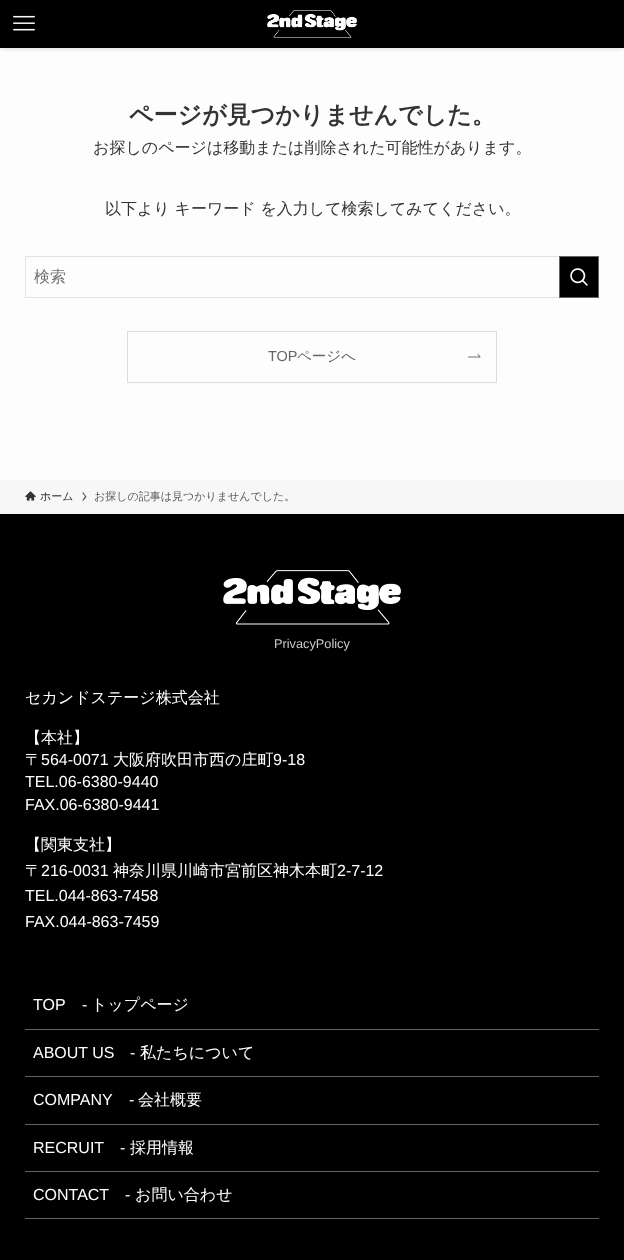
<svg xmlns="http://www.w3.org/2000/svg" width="624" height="1260">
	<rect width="100%" height="100%" fill="#FDFDFD" />
	<rect x="0" y="1" width="624" height="48" fill="#000000" fill-opacity="0.12" filter="blur(2px)" />
	<rect x="0" y="0" width="624" height="48" fill="#000000" />
	<image x="13" y="15" width="22" height="16" href="assets/img1.png" />
	<image x="267" y="10" width="90" height="28" href="assets/img2.png" />
	<text x="129" y="123" font-family="WenQuanYi Zen Hei" font-size="24" font-weight="700" fill="#333333">ページが見つかりませんでした。</text>
	<g font-family="WenQuanYi Zen Hei" font-size="16" font-weight="500" fill="#333333">
		<text x="93" y="153">お探しのページは移動または削除された可能性があります。</text>
		<text x="105" y="214">以下より キーワード を入力して検索してみてください。</text>
	</g>
	<rect x="25.5" y="256.5" width="573" height="41" fill="none" stroke="#E3E3E3" />
	<text x="34" y="282" font-family="WenQuanYi Zen Hei" font-size="16" font-weight="500" fill="#757575">検索</text>
	<rect x="559.5" y="256.5" width="39" height="41" fill="#000000" stroke="#646464" />
	<image x="570" y="268" width="18" height="18" href="assets/img3.png" />
	<rect x="127.5" y="331.5" width="369" height="51" fill="none" stroke="#DCDCDC" />
	<text x="268" y="361" font-family="Liberation Sans" font-size="14.5" fill="#666666">TOP</text>
	<text x="297" y="361" font-family="WenQuanYi Zen Hei" font-size="14.5" font-weight="500" fill="#666666">ページへ</text>
	<image x="468" y="354" width="13" height="4" href="assets/img4.png" />
	<rect x="0" y="480" width="624" height="34" fill="#F7F7F7" />
	<image x="25" y="491" width="11" height="10" href="assets/img5.png" />
	<text x="40" y="500" font-family="WenQuanYi Zen Hei" font-size="11" font-weight="500" fill="#333333">ホーム</text>
	<path d="M83.5 492.5H82L85 496.5L82 500.5H83.5L86.5 497Z" fill="#5A5A5A" />
	<text x="94" y="500" font-family="WenQuanYi Zen Hei" font-size="11" font-weight="500" fill="#5A5A5A">お探しの記事は見つかりませんでした。</text>
	<rect x="0" y="514" width="624" height="746" fill="#000000" />
	<image x="223" y="570" width="178" height="55" href="assets/img6.png" />
	<text x="274" y="648" font-family="Liberation Sans" font-size="12.75" fill="#CCCCCC">PrivacyPolicy</text>
	<g font-family="WenQuanYi Zen Hei" font-size="16" font-weight="500" fill="#FFFFFF">
		<text x="25" y="703">セカンドステージ株式会社</text>
		<text x="25" y="743">【本社】</text>
		<text x="25" y="765">〒</text>
	</g>
	<text x="41" y="765" font-family="Liberation Sans" font-size="16" fill="#FFFFFF">564-0071</text>
	<text x="113" y="765" font-family="WenQuanYi Zen Hei" font-size="16" font-weight="500" fill="#FFFFFF">大阪府吹田市西の庄町</text>
	<g font-family="Liberation Sans" font-size="16" fill="#FFFFFF">
		<text x="273" y="765">9-18</text>
		<text x="25" y="787">TEL.06-6380-9440</text>
		<text x="25" y="810">FAX.06-6380-9441</text>
	</g>
	<g font-family="WenQuanYi Zen Hei" font-size="16" font-weight="500" fill="#FFFFFF">
		<text x="25" y="850">【関東支社】</text>
		<text x="25" y="876">〒</text>
	</g>
	<text x="41" y="876" font-family="Liberation Sans" font-size="16" fill="#FFFFFF">216-0031</text>
	<text x="113" y="876" font-family="WenQuanYi Zen Hei" font-size="16" font-weight="500" fill="#FFFFFF">神奈川県川崎市宮前区神木本町</text>
	<g font-family="Liberation Sans" font-size="16" fill="#FFFFFF">
		<text x="337" y="876">2-7-12</text>
		<text x="25" y="901">TEL.044-863-7458</text>
		<text x="25" y="927">FAX.044-863-7459</text>
	</g>
	<rect x="25" y="1029" width="574" height="1" fill="#646464" />
	<g font-family="Liberation Sans" font-size="16" fill="#FFFFFF">
		<text x="33" y="1010">TOP</text>
		<text x="82" y="1010">-</text>
	</g>
	<text x="91" y="1010" font-family="WenQuanYi Zen Hei" font-size="16" font-weight="500" fill="#FFFFFF">トップページ</text>
	<rect x="25" y="1076" width="574" height="1" fill="#646464" />
	<g font-family="Liberation Sans" font-size="16" fill="#FFFFFF">
		<text x="33" y="1058">ABOUT US</text>
		<text x="130" y="1058">-</text>
	</g>
	<text x="140" y="1058" font-family="WenQuanYi Zen Hei" font-size="16" font-weight="500" fill="#FFFFFF">私たちについて</text>
	<rect x="25" y="1124" width="574" height="1" fill="#646464" />
	<g font-family="Liberation Sans" font-size="16" fill="#FFFFFF">
		<text x="33" y="1105">COMPANY</text>
		<text x="129" y="1105">-</text>
	</g>
	<text x="138" y="1105" font-family="WenQuanYi Zen Hei" font-size="16" font-weight="500" fill="#FFFFFF">会社概要</text>
	<rect x="25" y="1171" width="574" height="1" fill="#646464" />
	<g font-family="Liberation Sans" font-size="16" fill="#FFFFFF">
		<text x="33" y="1153">RECRUIT</text>
		<text x="120" y="1153">-</text>
	</g>
	<text x="130" y="1153" font-family="WenQuanYi Zen Hei" font-size="16" font-weight="500" fill="#FFFFFF">採用情報</text>
	<rect x="25" y="1218" width="574" height="1" fill="#646464" />
	<g font-family="Liberation Sans" font-size="16" fill="#FFFFFF">
		<text x="33" y="1200">CONTACT</text>
		<text x="125" y="1200">-</text>
	</g>
	<text x="135" y="1200" font-family="WenQuanYi Zen Hei" font-size="16" font-weight="500" fill="#FFFFFF">お問い合わせ</text>
</svg>
